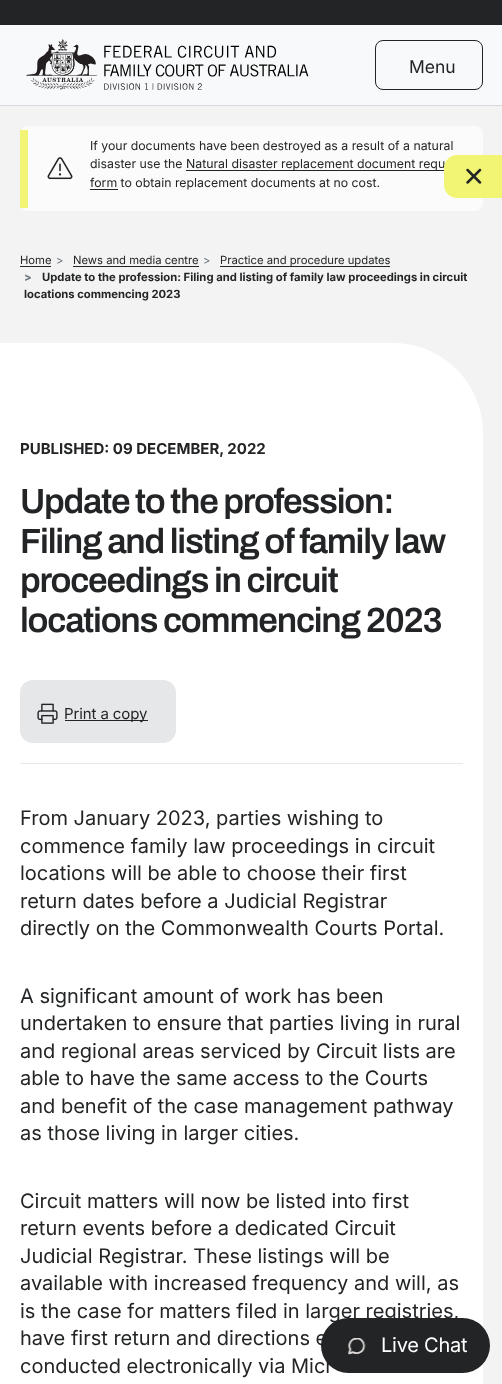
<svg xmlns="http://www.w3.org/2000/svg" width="502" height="1384">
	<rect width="100%" height="100%" fill="#F3F3F3" />
	<rect x="0" y="0" width="502" height="25" fill="#222426" />
	<rect x="0" y="25" width="502" height="80" fill="#F8F9FA" />
	<rect x="0" y="105" width="502" height="1" fill="#D8D8DF" />
	<image x="26" y="39" width="283" height="51" href="assets/img1.png" />
	<rect x="375.5" y="40.5" width="107" height="49" rx="7.5" fill="none" stroke="#222426" />
	<text x="409" y="73" font-family="Inter" font-size="17.5" fill="#222426">Menu</text>
	<rect x="20" y="126" width="463" height="85" rx="8" fill="#FBFBFB" />
	<rect x="20" y="130" width="8" height="78" fill="#F2F473" />
	<image x="47" y="157" width="26" height="23" href="assets/img2.png" />
	<g font-family="Inter" font-size="12.3" fill="#222426">
		<text x="90" y="150">If your documents have been destroyed as a result of a natural</text>
		<text x="90" y="168">disaster use the</text>
	</g>
	<rect x="186" y="170" width="258" height="1" fill="#222426" />
	<text x="186" y="168" font-family="Inter" font-size="12.3" fill="#222426">Natural disaster replacement document requ</text>
	<rect x="90" y="189" width="28" height="1" fill="#222426" />
	<text x="90" y="187" font-family="Inter" font-size="12.3" fill="#222426">form to obtain replacement documents at no cost.</text>
	<text x="20" y="264" font-family="Inter" font-size="11.25" fill="#222426">Home</text>
	<rect x="20" y="266" width="31" height="1" fill="#222426" />
	<text x="56" y="264" font-family="Inter" font-size="11.25" fill="#6C757D">&gt;</text>
	<text x="73" y="264" font-family="Inter" font-size="11.25" fill="#222426">News and media centre</text>
	<rect x="73" y="266" width="126" height="1" fill="#222426" />
	<text x="203" y="264" font-family="Inter" font-size="11.25" fill="#6C757D">&gt;</text>
	<rect x="220" y="266" width="170" height="1" fill="#222426" />
	<text x="220" y="264" font-family="Inter" font-size="11.25" fill="#222426">Practice and procedure updates</text>
	<text x="24" y="281" font-family="Inter" font-size="11.25" font-weight="700" fill="#6C757D">&gt;</text>
	<g font-family="Inter" font-size="11.25" font-weight="700" fill="#222426">
		<text x="42" y="281">Update to the profession: Filing and listing of family law proceedings in circuit</text>
		<text x="24" y="298">locations commencing 2023</text>
	</g>
	<path d="M0 343H393C442.5 343 483 383.5 483 433V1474H90C40.5 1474 0 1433.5 0 1384Z" fill="#FFFFFF" />
	<path d="M457 155H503V198H457C450 198 444 192 444 185V168C444 161 450 155 457 155Z" fill="#F2F473" />
	<image x="466" y="168" width="16" height="16" href="assets/img3.png" />
	<text x="20" y="454" font-family="Inter" font-size="15" font-weight="700" fill="#222426">PUBLISHED: 09 DECEMBER, 2022</text>
	<g font-family="Archivo" font-size="35" font-weight="600" letter-spacing="-1.25" fill="#222426">
		<text x="20" y="513">Update to the profession:</text>
		<text x="20" y="553">Filing and listing of family law</text>
		<text x="20" y="592">proceedings in circuit</text>
		<text x="20" y="632">locations commencing 2023</text>
	</g>
	<rect x="22" y="682" width="152" height="59" rx="11" fill="#E6E7E9" stroke="#E6E7E9" stroke-width="4" />
	<image x="37" y="703" width="21" height="21" href="assets/img4.png" />
	<rect x="65" y="720" width="83" height="1" fill="#222426" />
	<text x="64" y="719" font-family="Inter" font-size="15" letter-spacing="-0.1" fill="#222426">Print a copy</text>
	<rect x="20" y="763" width="443" height="1" fill="#E6E7E9" />
	<g font-family="Inter" font-size="20" fill="#222426">
		<text x="20" y="825">From January 2023, parties wishing to</text>
		<text x="20" y="853">commence family law proceedings in circuit</text>
		<text x="20" y="880">locations will be able to choose their first</text>
		<text x="20" y="908">return dates before a Judicial Registrar</text>
		<text x="20" y="935">directly on the Commonwealth Courts Portal.</text>
		<text x="20" y="1003">A significant amount of work has been</text>
		<text x="20" y="1030">undertaken to ensure that parties living in rural</text>
		<text x="20" y="1058">and regional areas serviced by Circuit lists are</text>
		<text x="20" y="1085">able to have the same access to the Courts</text>
		<text x="20" y="1113">and benefit of the case management pathway</text>
		<text x="20" y="1140">as those living in larger cities.</text>
		<text x="20" y="1208">Circuit matters will now be listed into first</text>
		<text x="20" y="1235">return events before a dedicated Circuit</text>
		<text x="20" y="1263">Judicial Registrar. These listings will be</text>
		<text x="20" y="1290">available with increased frequency and will, as</text>
		<text x="20" y="1318">is the case for matters filed in larger registries,</text>
		<text x="20" y="1345">have first return and directions e</text>
		<text x="20" y="1373">conducted electronically via Micr</text>
	</g>
	<rect x="321" y="1318" width="169" height="55" rx="27.5" fill="#222426" />
	<image x="348" y="1338" width="18" height="17" href="assets/img5.png" />
	<text x="381" y="1352" font-family="Inter" font-size="20" letter-spacing="-0.25" fill="#FFFFFF">Live Chat</text>
</svg>
